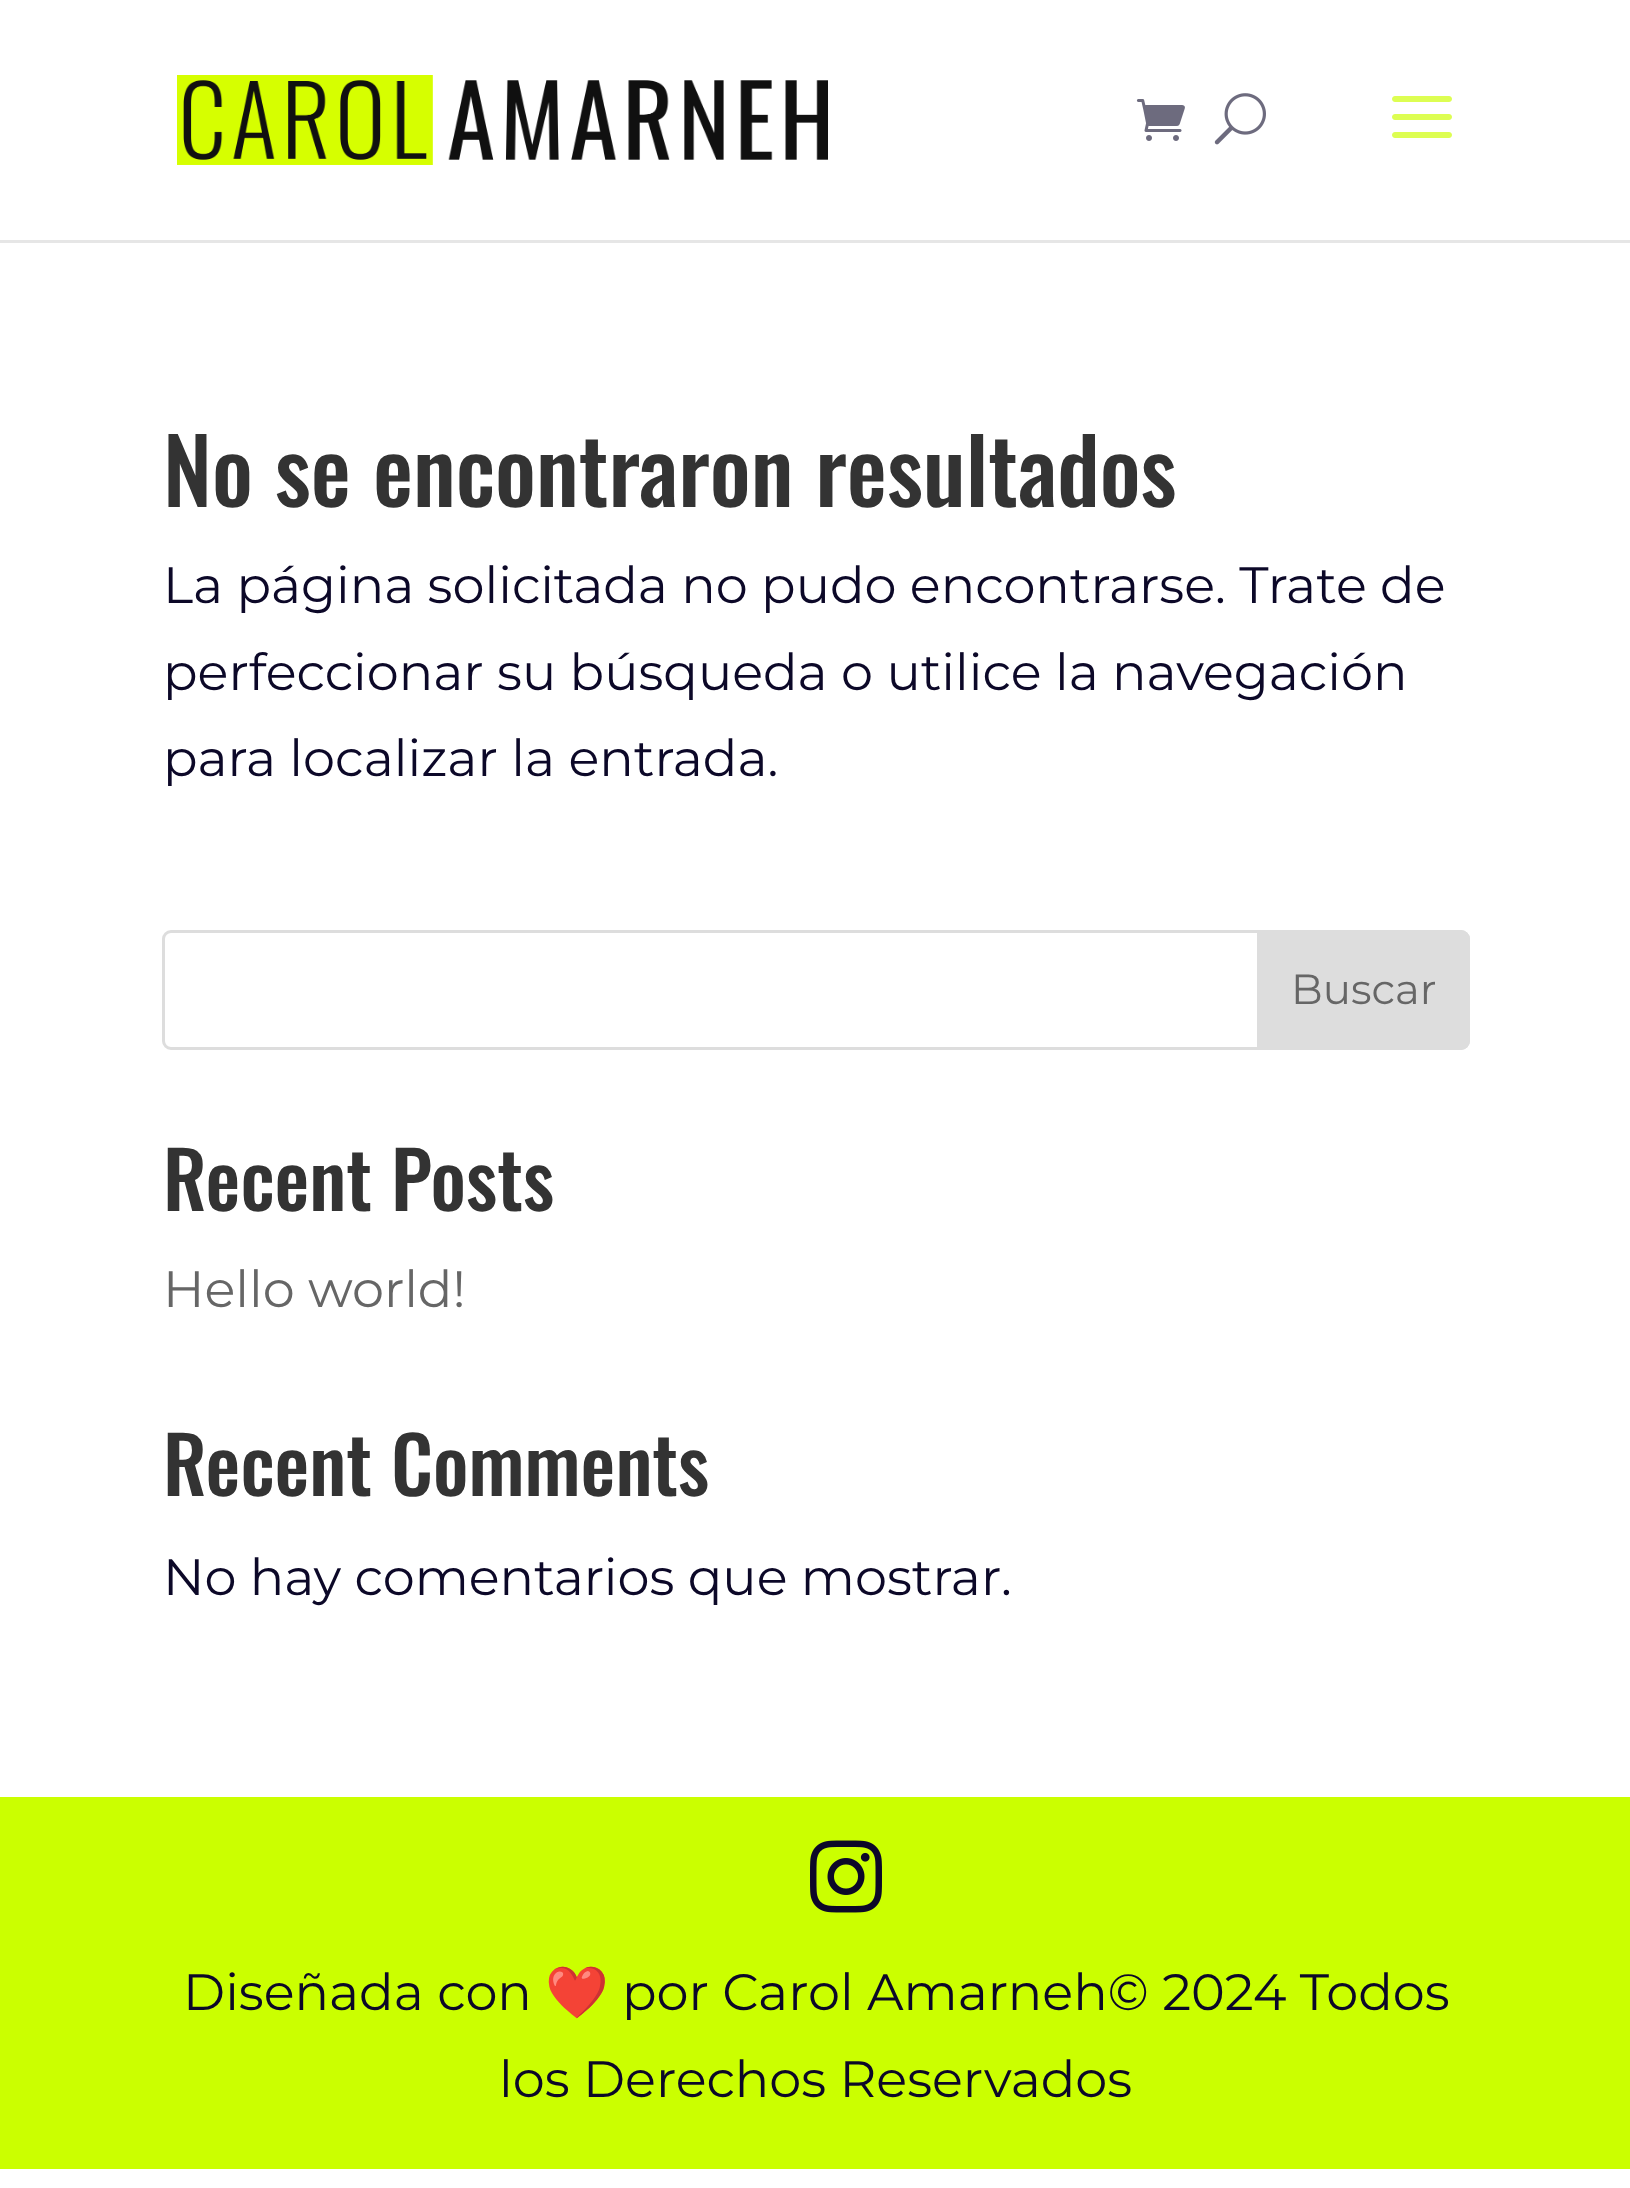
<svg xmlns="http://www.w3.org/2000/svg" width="1630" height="2188">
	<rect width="100%" height="100%" fill="#FFFFFF" />
	<rect x="0" y="240" width="1630" height="3" fill="#E6E6E6" />
	<image x="177" y="75" width="651" height="90" href="assets/img1.png" />
	<image x="1136" y="99" width="49" height="42" href="assets/img2.png" />
	<image x="1214" y="93" width="52" height="52" href="assets/img3.png" />
	<image x="1392" y="96" width="60" height="42" href="assets/img4.png" />
	<text x="163" y="507" font-family="Oswald" font-size="90" font-weight="500" fill="#333333">No se encontraron resultados</text>
	<g font-family="Montserrat" font-size="51" fill="#0C0828">
		<text x="163" y="603">La página solicitada no pudo encontrarse. Trate de</text>
		<text x="163" y="690">perfeccionar su búsqueda o utilice la navegación</text>
		<text x="163" y="776">para localizar la entrada.</text>
	</g>
	<rect x="163.5" y="931.5" width="1305" height="117" rx="7.5" fill="none" stroke="#DDDDDD" stroke-width="3" />
	<path d="M1258.5 931.5H1461C1465 931.5 1468.5 935 1468.5 939V1041C1468.5 1045 1465 1048.5 1461 1048.5H1258.5Z" fill="#DDDDDD" stroke="#DDDDDD" stroke-width="3" />
	<text x="1291" y="1004" font-family="Montserrat" font-size="42" fill="#666666">Buscar</text>
	<text x="163" y="1211" font-family="Oswald" font-size="78" font-weight="500" fill="#333333">Recent Posts</text>
	<text x="163" y="1307" font-family="Montserrat" font-size="51" fill="#666666">Hello world!</text>
	<text x="163" y="1496" font-family="Oswald" font-size="78" font-weight="500" fill="#333333">Recent Comments</text>
	<text x="163" y="1595" font-family="Montserrat" font-size="51" fill="#0C0828">No hay comentarios que mostrar.</text>
	<rect x="0" y="1797" width="1630" height="372" fill="#CBFF00" />
	<image x="810" y="1840" width="72" height="73" href="assets/img5.png" />
	<text x="183" y="2010" font-family="Montserrat" font-size="51" fill="#0C0828">Diseñada con</text>
	<text x="545" y="2010" font-family="Noto Color Emoji" font-size="51" fill="#0C0828">❤️</text>
	<g font-family="Montserrat" font-size="51" fill="#0C0828">
		<text x="622" y="2010">por Carol Amarneh© 2024 Todos</text>
		<text x="499" y="2097">los Derechos Reservados</text>
	</g>
</svg>
